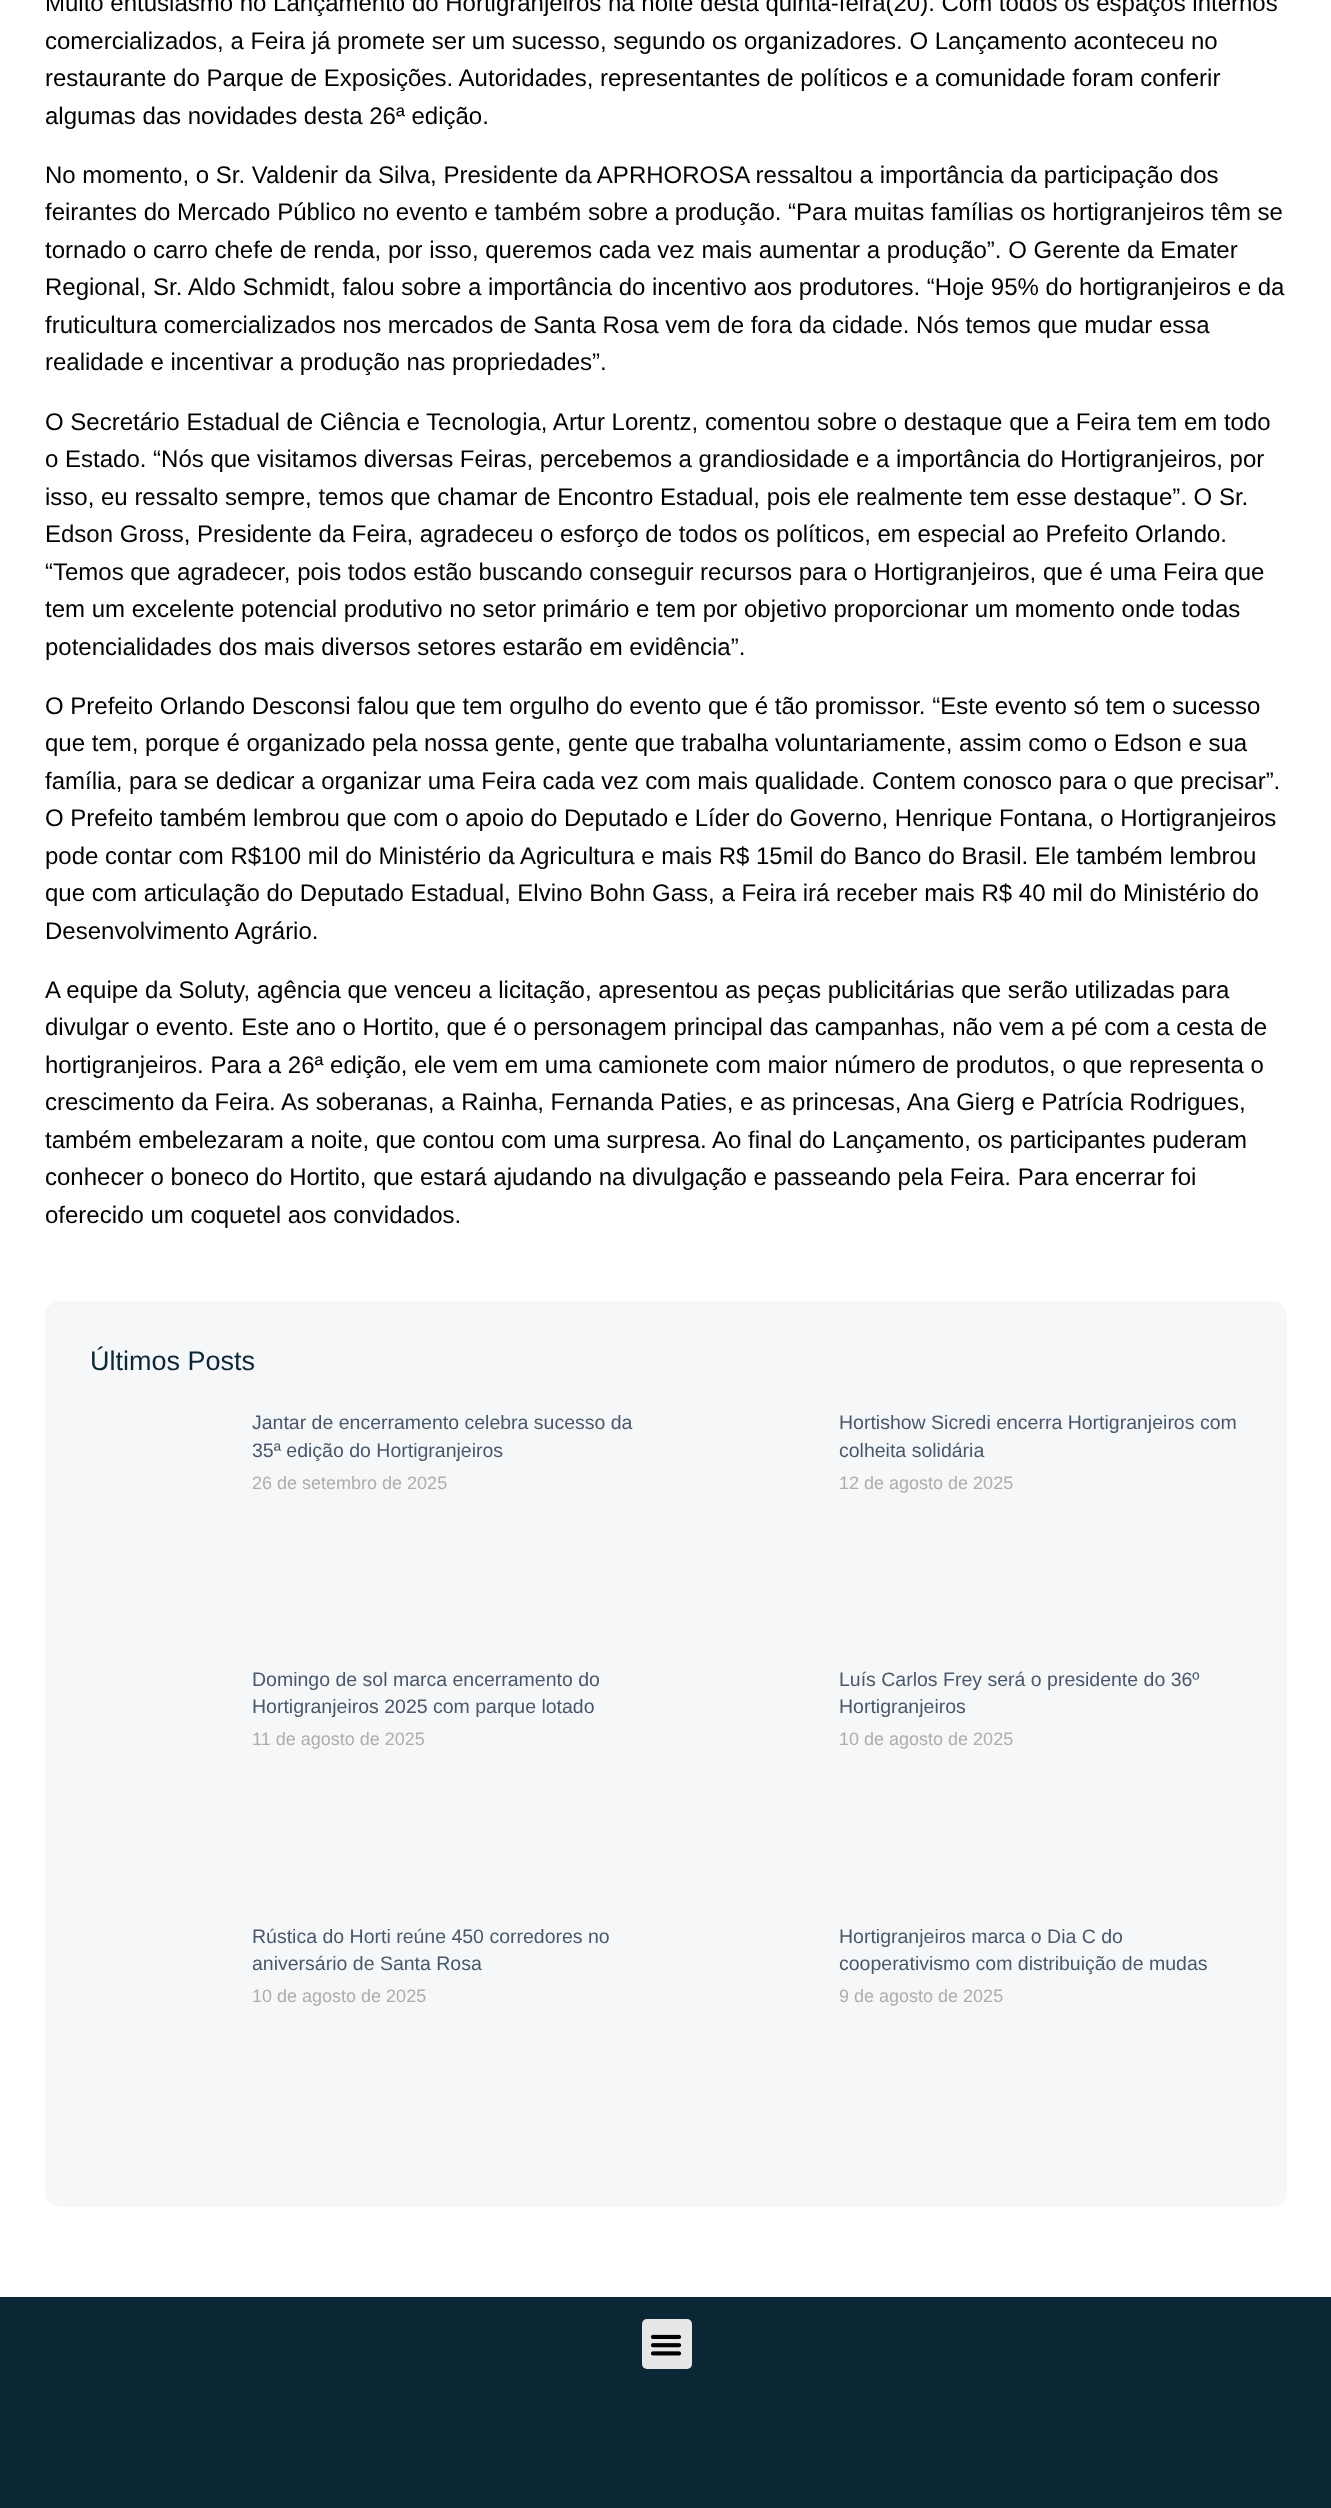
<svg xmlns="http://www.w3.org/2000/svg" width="1331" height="2508">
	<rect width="100%" height="100%" fill="#FFFFFF" />
	<g font-family="Liberation Sans" font-size="24" fill="#000000">
		<text x="45" y="11">Muito entusiasmo no Lançamento do Hortigranjeiros na noite desta quinta-feira(20). Com todos os espaços internos</text>
		<text x="45" y="49">comercializados, a Feira já promete ser um sucesso, segundo os organizadores. O Lançamento aconteceu no</text>
		<text x="45" y="86">restaurante do Parque de Exposições. Autoridades, representantes de políticos e a comunidade foram conferir</text>
		<text x="45" y="124">algumas das novidades desta 26ª edição.</text>
		<text x="45" y="183">No momento, o Sr. Valdenir da Silva, Presidente da APRHOROSA ressaltou a importância da participação dos</text>
		<text x="45" y="220">feirantes do Mercado Público no evento e também sobre a produção. “Para muitas famílias os hortigranjeiros têm se</text>
		<text x="45" y="258">tornado o carro chefe de renda, por isso, queremos cada vez mais aumentar a produção”. O Gerente da Emater</text>
		<text x="45" y="295">Regional, Sr. Aldo Schmidt, falou sobre a importância do incentivo aos produtores. “Hoje 95% do hortigranjeiros e da</text>
		<text x="45" y="333">fruticultura comercializados nos mercados de Santa Rosa vem de fora da cidade. Nós temos que mudar essa</text>
		<text x="45" y="370">realidade e incentivar a produção nas propriedades”.</text>
		<text x="45" y="430">O Secretário Estadual de Ciência e Tecnologia, Artur Lorentz, comentou sobre o destaque que a Feira tem em todo</text>
		<text x="45" y="467">o Estado. “Nós que visitamos diversas Feiras, percebemos a grandiosidade e a importância do Hortigranjeiros, por</text>
		<text x="45" y="505">isso, eu ressalto sempre, temos que chamar de Encontro Estadual, pois ele realmente tem esse destaque”. O Sr.</text>
		<text x="45" y="542">Edson Gross, Presidente da Feira, agradeceu o esforço de todos os políticos, em especial ao Prefeito Orlando.</text>
		<text x="45" y="580">“Temos que agradecer, pois todos estão buscando conseguir recursos para o Hortigranjeiros, que é uma Feira que</text>
		<text x="45" y="617">tem um excelente potencial produtivo no setor primário e tem por objetivo proporcionar um momento onde todas</text>
		<text x="45" y="655">potencialidades dos mais diversos setores estarão em evidência”.</text>
		<text x="45" y="714">O Prefeito Orlando Desconsi falou que tem orgulho do evento que é tão promissor. “Este evento só tem o sucesso</text>
		<text x="45" y="751">que tem, porque é organizado pela nossa gente, gente que trabalha voluntariamente, assim como o Edson e sua</text>
		<text x="45" y="789">família, para se dedicar a organizar uma Feira cada vez com mais qualidade. Contem conosco para o que precisar”.</text>
		<text x="45" y="826">O Prefeito também lembrou que com o apoio do Deputado e Líder do Governo, Henrique Fontana, o Hortigranjeiros</text>
		<text x="45" y="864">pode contar com R$100 mil do Ministério da Agricultura e mais R$ 15mil do Banco do Brasil. Ele também lembrou</text>
		<text x="45" y="901">que com articulação do Deputado Estadual, Elvino Bohn Gass, a Feira irá receber mais R$ 40 mil do Ministério do</text>
		<text x="45" y="939">Desenvolvimento Agrário.</text>
		<text x="45" y="998">A equipe da Soluty, agência que venceu a licitação, apresentou as peças publicitárias que serão utilizadas para</text>
		<text x="45" y="1035">divulgar o evento. Este ano o Hortito, que é o personagem principal das campanhas, não vem a pé com a cesta de</text>
		<text x="45" y="1073">hortigranjeiros. Para a 26ª edição, ele vem em uma camionete com maior número de produtos, o que representa o</text>
		<text x="45" y="1110">crescimento da Feira. As soberanas, a Rainha, Fernanda Paties, e as princesas, Ana Gierg e Patrícia Rodrigues,</text>
		<text x="45" y="1148">também embelezaram a noite, que contou com uma surpresa. Ao final do Lançamento, os participantes puderam</text>
		<text x="45" y="1185">conhecer o boneco do Hortito, que estará ajudando na divulgação e passeando pela Feira. Para encerrar foi</text>
		<text x="45" y="1223">oferecido um coquetel aos convidados.</text>
	</g>
	<rect x="45" y="1301" width="1242" height="906" rx="15" fill="#F5F7F8" />
	<text x="90" y="1370" font-family="Liberation Sans" font-size="27" fill="#0B2735">Últimos Posts</text>
	<g font-family="Liberation Sans" font-size="19.5" fill="#48586A">
		<text x="252" y="1429">Jantar de encerramento celebra sucesso da</text>
		<text x="252" y="1457">35ª edição do Hortigranjeiros</text>
	</g>
	<text x="252" y="1489" font-family="Liberation Sans" font-size="18" fill="#ADADAD">26 de setembro de 2025</text>
	<g font-family="Liberation Sans" font-size="19.5" fill="#48586A">
		<text x="839" y="1429">Hortishow Sicredi encerra Hortigranjeiros com</text>
		<text x="839" y="1457">colheita solidária</text>
	</g>
	<text x="839" y="1489" font-family="Liberation Sans" font-size="18" fill="#ADADAD">12 de agosto de 2025</text>
	<g font-family="Liberation Sans" font-size="19.5" fill="#48586A">
		<text x="252" y="1686">Domingo de sol marca encerramento do</text>
		<text x="252" y="1713">Hortigranjeiros 2025 com parque lotado</text>
	</g>
	<text x="252" y="1745" font-family="Liberation Sans" font-size="18" fill="#ADADAD">11 de agosto de 2025</text>
	<g font-family="Liberation Sans" font-size="19.5" fill="#48586A">
		<text x="839" y="1686">Luís Carlos Frey será o presidente do 36º</text>
		<text x="839" y="1713">Hortigranjeiros</text>
	</g>
	<text x="839" y="1745" font-family="Liberation Sans" font-size="18" fill="#ADADAD">10 de agosto de 2025</text>
	<g font-family="Liberation Sans" font-size="19.5" fill="#48586A">
		<text x="252" y="1943">Rústica do Horti reúne 450 corredores no</text>
		<text x="252" y="1970">aniversário de Santa Rosa</text>
	</g>
	<text x="252" y="2002" font-family="Liberation Sans" font-size="18" fill="#ADADAD">10 de agosto de 2025</text>
	<g font-family="Liberation Sans" font-size="19.5" fill="#48586A">
		<text x="839" y="1943">Hortigranjeiros marca o Dia C do</text>
		<text x="839" y="1970">cooperativismo com distribuição de mudas</text>
	</g>
	<text x="839" y="2002" font-family="Liberation Sans" font-size="18" fill="#ADADAD">9 de agosto de 2025</text>
	<rect x="0" y="2297" width="1331" height="211" fill="#0B2735" />
	<rect x="642" y="2319" width="50" height="50" rx="5" fill="#E7E7E7" />
	<image x="650" y="2334" width="32" height="22" href="assets/img1.png" />
</svg>
